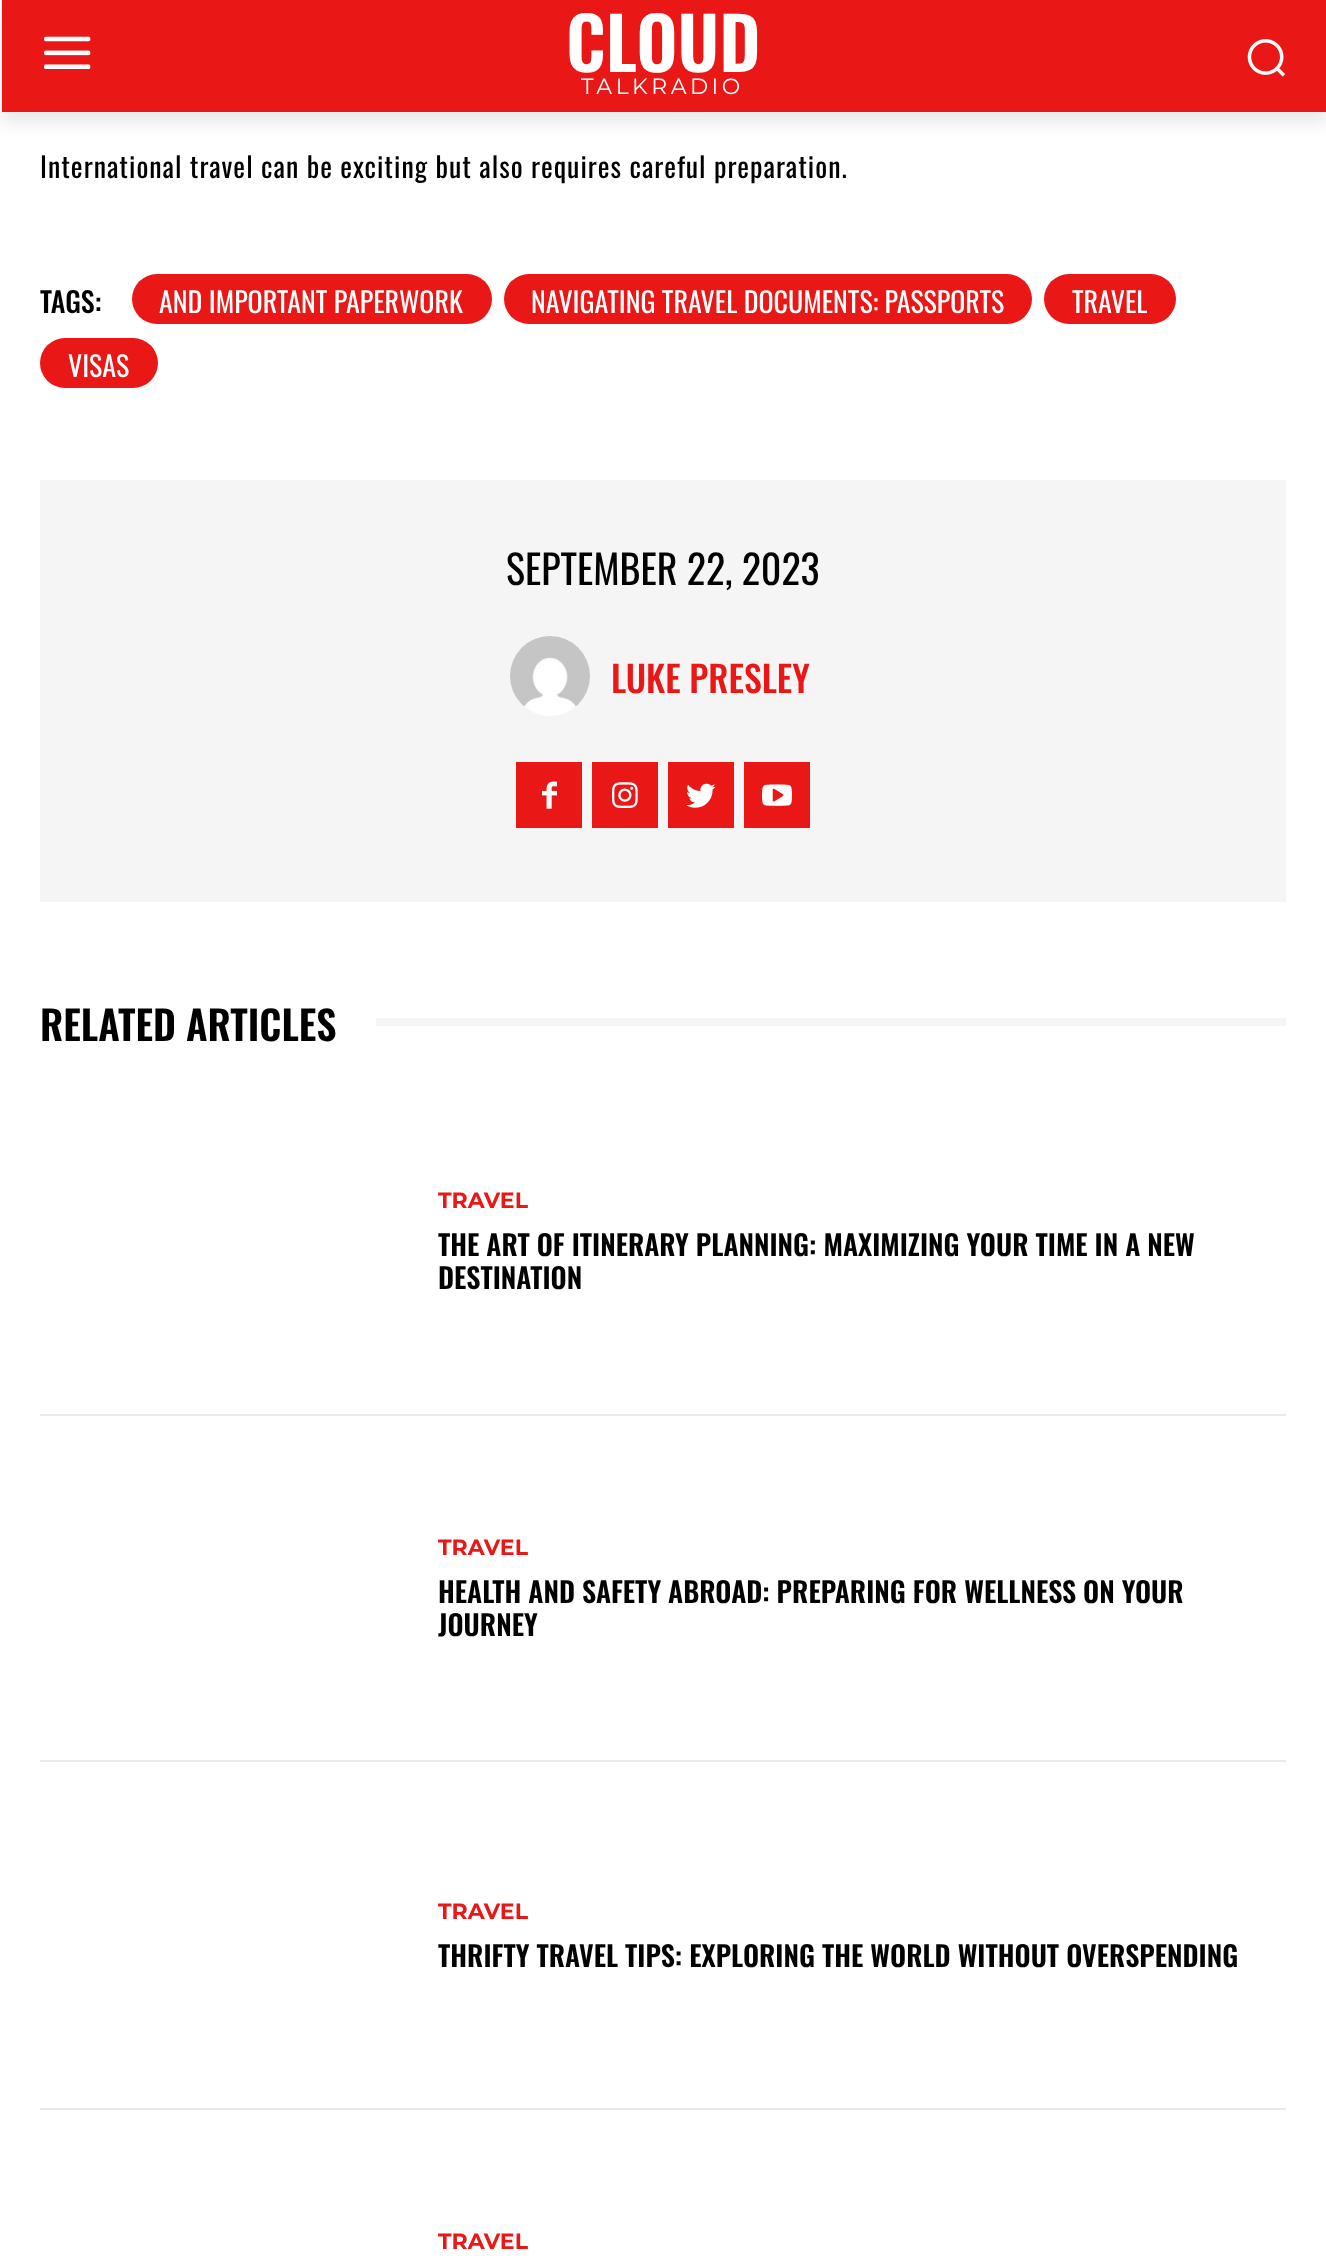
<svg xmlns="http://www.w3.org/2000/svg" width="1326" height="2260">
	<defs>
		<clipPath id="clip1"><path d="M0 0H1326V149H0ZM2 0H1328V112H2Z" clip-rule="evenodd" /></clipPath>
	</defs>
	<rect width="100%" height="100%" fill="#FFFFFF" />
	<rect x="2" y="0" width="1324" height="112" fill="#EA1717" />
	<image x="44" y="36" width="47" height="33" href="assets/img1.png" />
	<image x="1247" y="39" width="39" height="38" href="assets/img2.png" />
	<g clip-path="url(#clip1)">
		<rect x="2" y="12" width="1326" height="112" fill="#000000" fill-opacity="0.08" filter="blur(8px)" />
	</g>
	<text x="566" y="72" font-family="Oswald" font-size="72" font-weight="600" fill="#FFFFFF">CLOUD</text>
	<text x="581" y="94" font-family="Montserrat" font-size="22" letter-spacing="3.5" fill="#FFFFFF">TALKRADIO</text>
	<text x="40" y="178" font-family="Oswald" font-size="28" letter-spacing="1" fill="#000000">International travel can be exciting but also requires careful preparation.</text>
	<text x="40" y="313" font-family="Oswald" font-size="28" font-weight="500" fill="#000000">TAGS:</text>
	<rect x="132" y="274" width="360" height="50" rx="25" fill="#EA1717" />
	<text x="159" y="313" font-family="Oswald" font-size="28" fill="#FFFFFF">AND IMPORTANT PAPERWORK</text>
	<rect x="504" y="274" width="528" height="50" rx="25" fill="#EA1717" />
	<text x="531" y="313" font-family="Oswald" font-size="28" fill="#FFFFFF">NAVIGATING TRAVEL DOCUMENTS: PASSPORTS</text>
	<rect x="1044" y="274" width="132" height="50" rx="25" fill="#EA1717" />
	<text x="1072" y="313" font-family="Oswald" font-size="28" fill="#FFFFFF">TRAVEL</text>
	<rect x="40" y="338" width="118" height="50" rx="25" fill="#EA1717" />
	<text x="68" y="377" font-family="Oswald" font-size="28" fill="#FFFFFF">VISAS</text>
	<rect x="40" y="480" width="1246" height="422" fill="#F5F5F5" />
	<text x="506" y="585" font-family="Oswald" font-size="40" fill="#000000">SEPTEMBER 22, 2023</text>
	<image x="510" y="636" width="80" height="80" href="assets/img3.png" />
	<text x="611" y="693" font-family="Oswald" font-size="36" font-weight="500" fill="#EA1717">LUKE PRESLEY</text>
	<rect x="516" y="762" width="66" height="66" fill="#EA1717" />
	<image x="542" y="781" width="15" height="28" href="assets/img4.png" />
	<rect x="592" y="762" width="66" height="66" fill="#EA1717" />
	<image x="612" y="782" width="26" height="26" href="assets/img5.png" />
	<rect x="668" y="762" width="66" height="66" fill="#EA1717" />
	<image x="686" y="783" width="30" height="25" href="assets/img6.png" />
	<rect x="744" y="762" width="66" height="66" fill="#EA1717" />
	<image x="762" y="784" width="30" height="22" href="assets/img7.png" />
	<text x="40" y="1041" font-family="Oswald" font-size="40" font-weight="600" fill="#000000">RELATED ARTICLES</text>
	<rect x="376" y="1018" width="910" height="8" fill="#F5F5F5" />
	<text x="438" y="1208" font-family="Montserrat" font-size="22" font-weight="700" fill="#EA1717">TRAVEL</text>
	<g font-family="Oswald" font-size="28" font-weight="600" fill="#000000">
		<text x="438" y="1256">THE ART OF ITINERARY PLANNING: MAXIMIZING YOUR TIME IN A NEW</text>
		<text x="438" y="1289">DESTINATION</text>
	</g>
	<rect x="40" y="1414" width="1246" height="2" fill="#EAEAEA" />
	<text x="438" y="1555" font-family="Montserrat" font-size="22" font-weight="700" fill="#EA1717">TRAVEL</text>
	<g font-family="Oswald" font-size="28" font-weight="600" fill="#000000">
		<text x="438" y="1603">HEALTH AND SAFETY ABROAD: PREPARING FOR WELLNESS ON YOUR</text>
		<text x="438" y="1636">JOURNEY</text>
	</g>
	<rect x="40" y="1760" width="1246" height="2" fill="#EAEAEA" />
	<text x="438" y="1919" font-family="Montserrat" font-size="22" font-weight="700" fill="#EA1717">TRAVEL</text>
	<text x="438" y="1967" font-family="Oswald" font-size="28" font-weight="600" fill="#000000">THRIFTY TRAVEL TIPS: EXPLORING THE WORLD WITHOUT OVERSPENDING</text>
	<rect x="40" y="2108" width="1246" height="2" fill="#EAEAEA" />
	<text x="438" y="2249" font-family="Montserrat" font-size="22" font-weight="700" fill="#EA1717">TRAVEL</text>
</svg>
